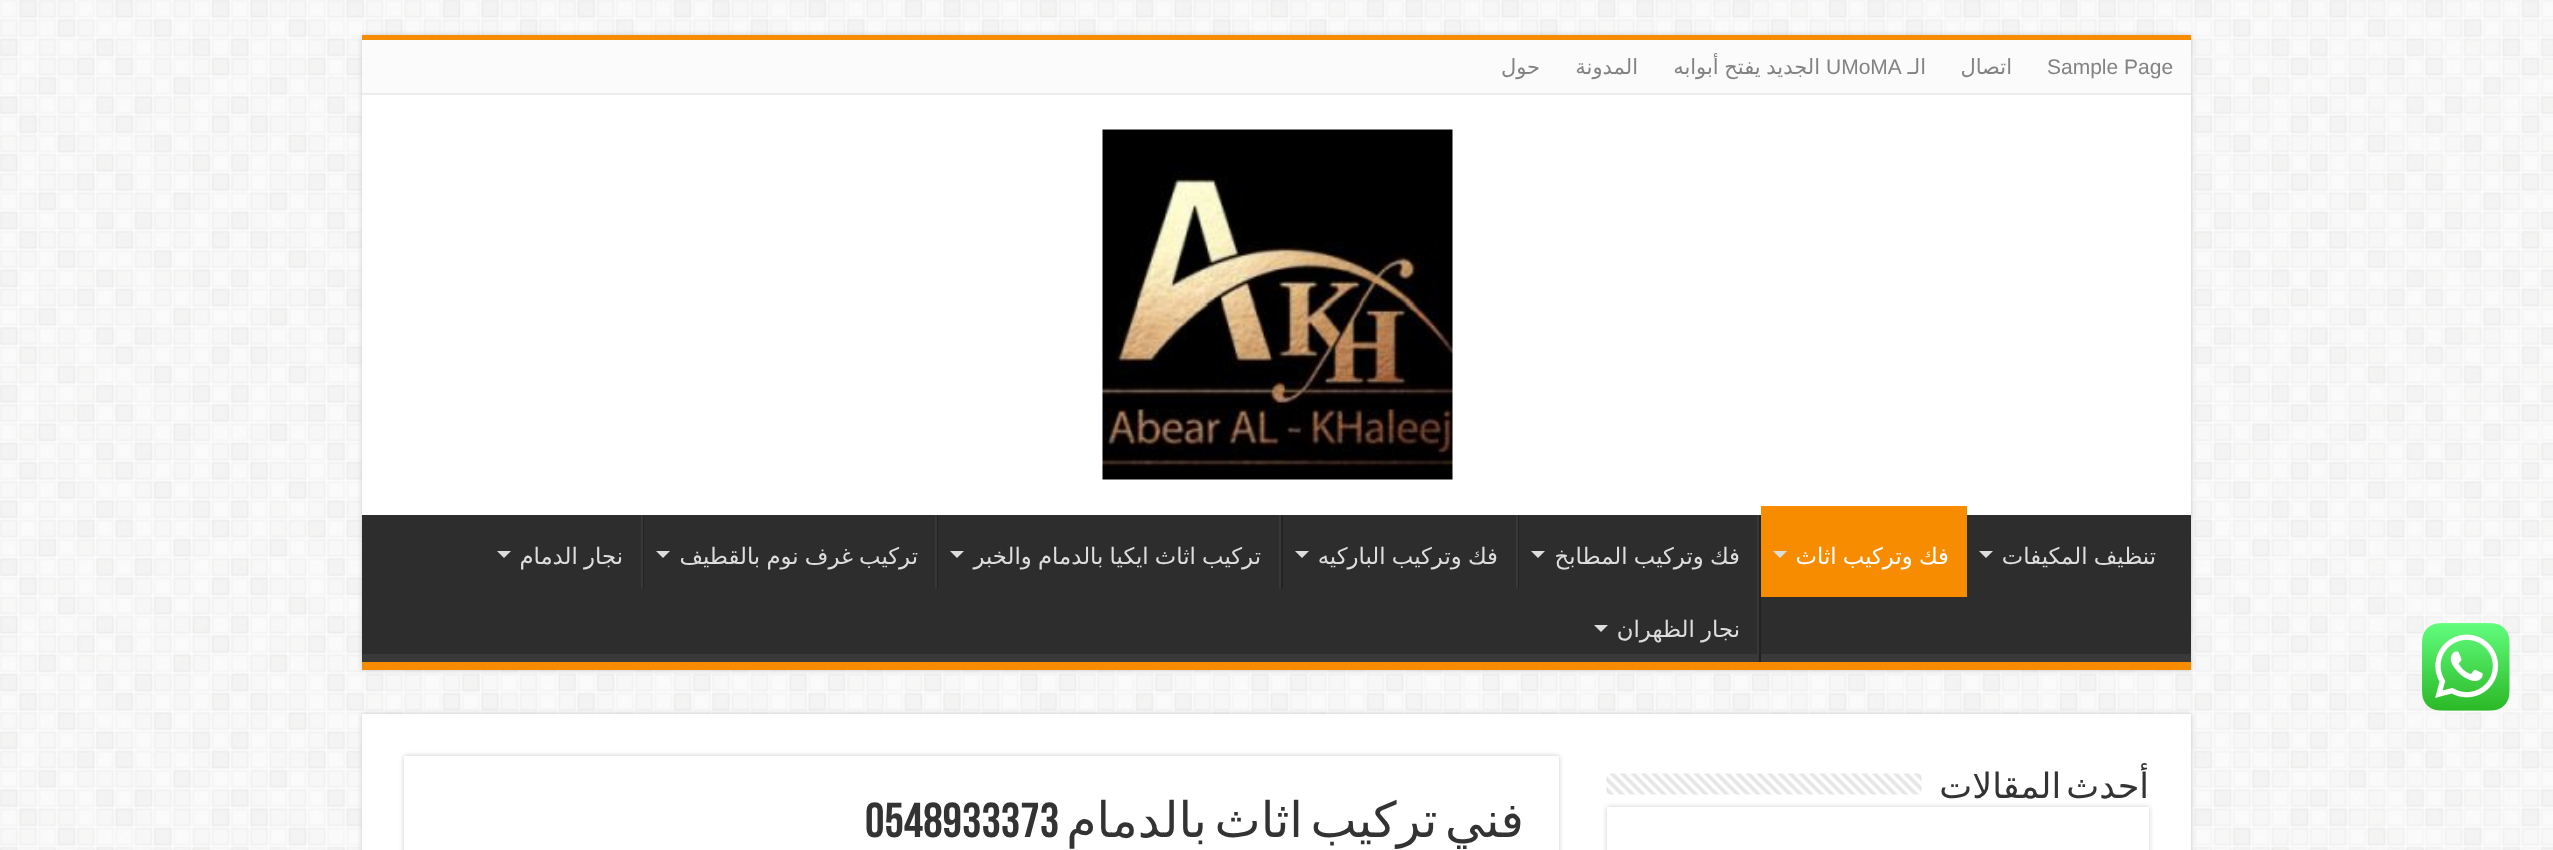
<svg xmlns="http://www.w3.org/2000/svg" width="2553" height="850">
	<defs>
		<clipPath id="clip1"><rect x="362" y="515" width="1829" height="147" /></clipPath>
		<clipPath id="clip2"><path d="M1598 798H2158V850H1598ZM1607 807H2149V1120H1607Z" clip-rule="evenodd" /></clipPath>
	</defs>
	<rect width="100%" height="100%" fill="#FFFFFF" />
	<image x="0" y="0" width="2553" height="850" href="assets/img1.png" />
	<image x="2422" y="623" width="88" height="88" href="assets/img2.png" />
	<rect x="362" y="35" width="1829" height="635" fill="#CACACA" filter="blur(2.5px)" />
	<rect x="362" y="95" width="1829" height="420" fill="#FFFFFF" />
	<rect x="362" y="35" width="1829" height="5" fill="#F88C00" />
	<rect x="362" y="40" width="1829" height="53" fill="#FBFBFB" />
	<rect x="362" y="93" width="1829" height="2" fill="#ECECEC" />
	<text x="2047" y="74" font-family="Liberation Sans" font-size="21" fill="#838383">Sample Page</text>
	<g font-family="DejaVu Sans" font-size="21" direction="rtl" fill="#838383">
		<text x="2012" y="74">اتصال</text>
		<text x="1926" y="74">الـ</text>
	</g>
	<text x="1826" y="74" font-family="Liberation Sans" font-size="21" fill="#838383">UMoMA</text>
	<g font-family="DejaVu Sans" font-size="21" direction="rtl" fill="#838383">
		<text x="1820" y="74" word-spacing="-1">الجديد يفتح أبوابه</text>
		<text x="1638" y="74">المدونة</text>
		<text x="1540" y="74">حول</text>
	</g>
	<image x="1102" y="129" width="351" height="351" href="assets/img3.png" />
	<rect x="362" y="515" width="1829" height="139" fill="#2D2D2D" />
	<g clip-path="url(#clip1)">
		<path d="M189 341H2364V835H189ZM360 504H2189C2190 504 2191 505 2191 506V653C2191 654 2190 654 2189 654H360C360 654 359 654 359 653V506C359 505 360 504 360 504Z" fill="#393939" fill-rule="evenodd" />
	</g>
	<rect x="362" y="662" width="1829" height="8" fill="#F88C00" />
	<text x="2156" y="564" word-spacing="-1" font-family="DejaVu Sans" font-size="22.75" direction="rtl" fill="#DDDDDD">تنظيف المكيفات</text>
	<path d="M1979 551H1993L1986 558Z" fill="#DDDDDD" />
	<rect x="1761" y="506" width="206" height="91" fill="#F88C00" />
	<text x="1949" y="564" word-spacing="-1" font-family="DejaVu Sans" font-size="22.75" direction="rtl" fill="#FFFFFF">فك وتركيب اثاث</text>
	<path d="M1773 551H1787L1780 558Z" fill="#DDDDDD" />
	<rect x="1759" y="515" width="2" height="147" fill="#222222" />
	<rect x="1757" y="515" width="2" height="147" fill="#383838" />
	<text x="1740" y="564" word-spacing="-1" font-family="DejaVu Sans" font-size="22.75" direction="rtl" fill="#DDDDDD">فك وتركيب المطابخ</text>
	<path d="M1531 551H1545L1538 558Z" fill="#DDDDDD" />
	<rect x="1518" y="515" width="1" height="73" fill="#222222" />
	<rect x="1516" y="515" width="2" height="73" fill="#383838" />
	<text x="1498" y="564" word-spacing="-1" font-family="DejaVu Sans" font-size="22.75" direction="rtl" fill="#DDDDDD">فك وتركيب الباركيه</text>
	<path d="M1295 551H1309L1302 558Z" fill="#DDDDDD" />
	<rect x="1281" y="515" width="2" height="73" fill="#222222" />
	<rect x="1279" y="515" width="2" height="73" fill="#383838" />
	<text x="1261" y="564" word-spacing="-1" font-family="DejaVu Sans" font-size="22.75" direction="rtl" fill="#DDDDDD">تركيب اثاث ايكيا بالدمام والخبر</text>
	<path d="M950 551H964L957 558Z" fill="#DDDDDD" />
	<rect x="937" y="515" width="1" height="73" fill="#222222" />
	<rect x="935" y="515" width="2" height="73" fill="#383838" />
	<text x="918" y="564" word-spacing="-1" font-family="DejaVu Sans" font-size="22.75" direction="rtl" fill="#DDDDDD">تركيب غرف نوم بالقطيف</text>
	<path d="M656 551H670L663 558Z" fill="#DDDDDD" />
	<rect x="643" y="515" width="1" height="73" fill="#222222" />
	<rect x="641" y="515" width="2" height="73" fill="#383838" />
	<text x="623" y="564" word-spacing="-1" font-family="DejaVu Sans" font-size="22.75" direction="rtl" fill="#DDDDDD">نجار الدمام</text>
	<path d="M497 551H511L504 558Z" fill="#DDDDDD" />
	<text x="1740" y="637" word-spacing="-1" font-family="DejaVu Sans" font-size="22.75" direction="rtl" fill="#DDDDDD">نجار الظهران</text>
	<path d="M1594 625H1608L1601 632Z" fill="#DDDDDD" />
	<rect x="362" y="714" width="1829" height="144" fill="#CACACA" filter="blur(2.5px)" />
	<rect x="362" y="714" width="1829" height="136" fill="#FFFFFF" />
	<g clip-path="url(#clip2)">
		<rect x="1607" y="807" width="542" height="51" fill="#CACACA" filter="blur(2.5px)" />
	</g>
	<text x="2149" y="798" word-spacing="-6" font-family="DejaVu Sans" font-size="35" direction="rtl" fill="#333333">أحدث المقالات</text>
	<image x="1606" y="773" width="316" height="22" href="assets/img4.png" />
	<rect x="404" y="756" width="1155" height="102" fill="#CACACA" filter="blur(2.5px)" />
	<rect x="404" y="756" width="1155" height="94" fill="#FFFFFF" />
	<text x="1524" y="837" word-spacing="-8" font-family="DejaVu Sans" font-size="49" direction="rtl" fill="#333333">فني تركيب اثاث بالدمام</text>
	<text x="865" y="837" font-family="Bebas Neue" font-size="49" font-weight="700" fill="#333333">0548933373</text>
</svg>
